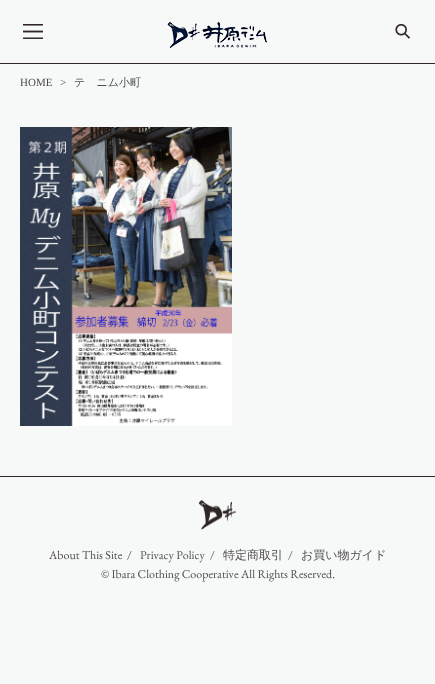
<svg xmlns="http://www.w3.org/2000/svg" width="435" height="684">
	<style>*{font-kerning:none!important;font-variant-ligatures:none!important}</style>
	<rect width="100%" height="100%" fill="#F7F8F8" />
	<rect x="0" y="63" width="435" height="1" fill="#2F2725" />
	<image x="23" y="24" width="20" height="15" href="assets/img1.png" />
	<image x="167" y="21" width="100" height="28" href="assets/img2.png" />
	<image x="395" y="24" width="15" height="15" href="assets/img3.png" />
	<g font-family="Liberation Serif" font-size="11" fill="#4D4D4D">
		<text x="20" y="86">HOME</text>
		<text x="60" y="86">&gt;</text>
	</g>
	<text x="74" y="86" font-family="WenQuanYi Zen Hei" font-size="11" font-weight="500" fill="#4D4D4D">デニム小町</text>
	<image x="20" y="127" width="212" height="299" href="assets/img4.png" />
	<rect x="0" y="476" width="435" height="1" fill="#2F2725" />
	<image x="199" y="500" width="37" height="30" href="assets/img5.png" />
	<g font-family="EB Garamond" font-size="12" fill="#4D4D4D">
		<text x="49" y="559">About This Site</text>
		<text x="127" y="559">/</text>
		<text x="140" y="559">Privacy Policy</text>
		<text x="210" y="559">/</text>
	</g>
	<text x="223" y="559" font-family="WenQuanYi Zen Hei" font-size="12" font-weight="500" fill="#4D4D4D">特定商取引</text>
	<text x="288" y="559" font-family="EB Garamond" font-size="12" fill="#4D4D4D">/</text>
	<text x="301" y="559" font-family="WenQuanYi Zen Hei" font-size="12" font-weight="500" fill="#4D4D4D">お買い物ガイド</text>
	<text x="101" y="578" font-family="EB Garamond" font-size="12" fill="#4D4D4D">© Ibara Clothing Cooperative All Rights Reserved.</text>
</svg>
